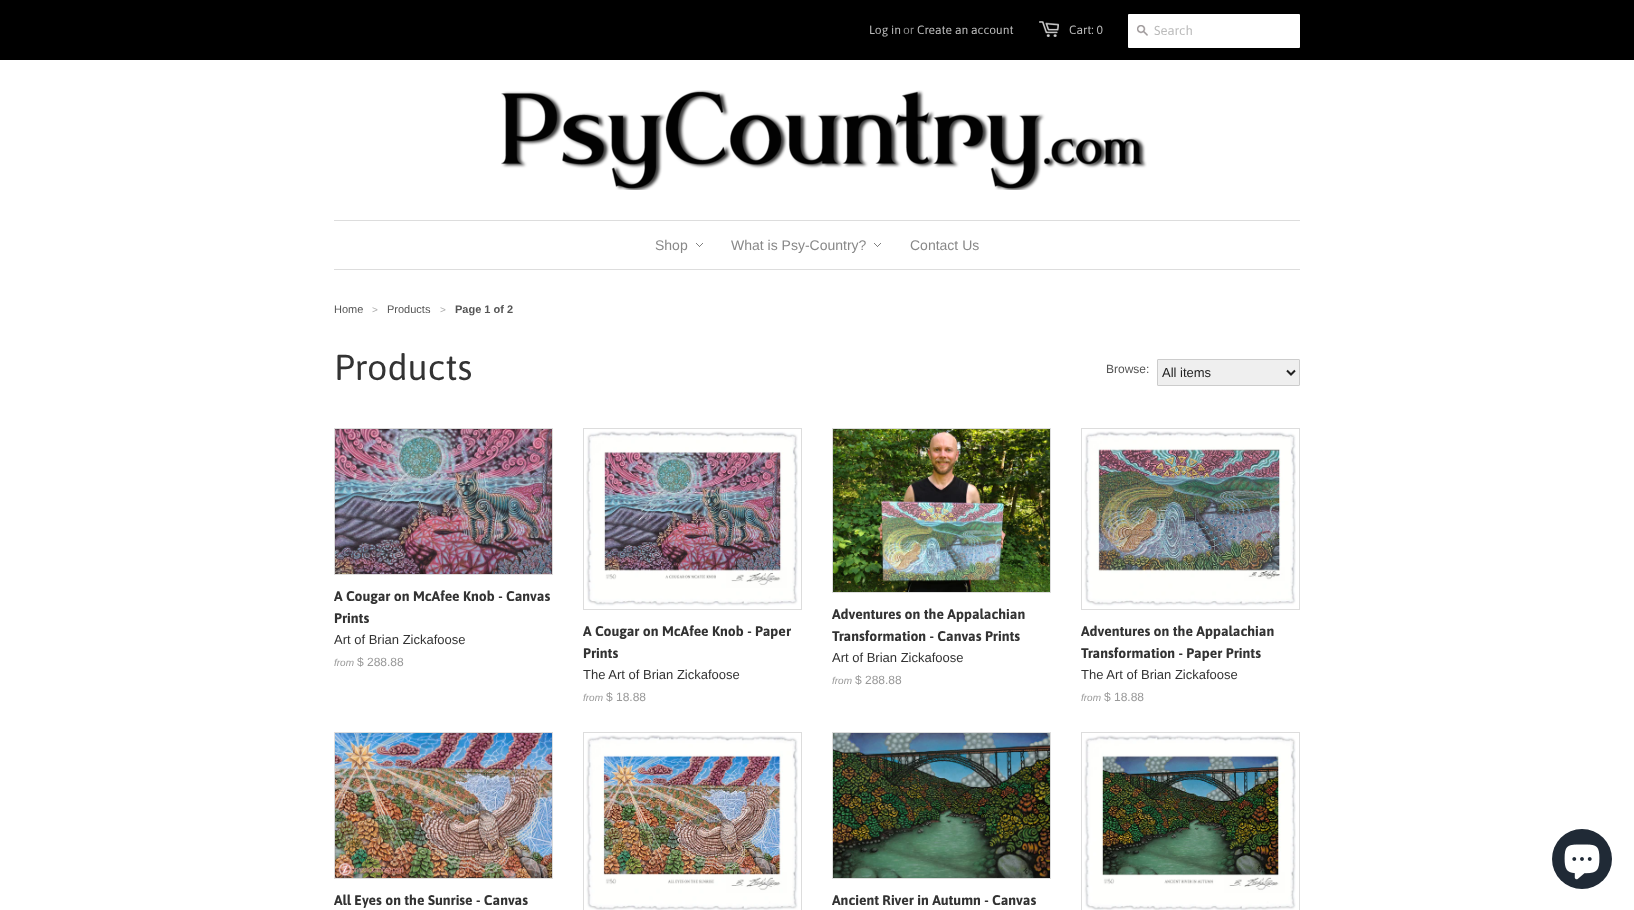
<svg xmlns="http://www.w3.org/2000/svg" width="1634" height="910">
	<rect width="100%" height="100%" fill="#FFFFFF" />
	<rect x="0" y="0" width="1634" height="60" fill="#000000" />
	<text x="869" y="34" font-family="Asap" font-size="12" fill="#BBBBBB">Log in</text>
	<text x="903" y="34" font-family="Asap" font-size="12" fill="#888888">or</text>
	<text x="917" y="34" font-family="Asap" font-size="12" fill="#BBBBBB">Create an account</text>
	<image x="1039" y="21" width="20" height="16" href="assets/img1.png" />
	<text x="1069" y="34" font-family="Asap" font-size="12" fill="#BBBBBB">Cart: 0</text>
	<rect x="1128" y="14" width="172" height="34" rx="1" fill="#FFFFFF" />
	<image x="1137" y="25" width="11" height="11" href="assets/img2.png" />
	<text x="1154" y="35" font-family="Asap" font-size="13" fill="#BBBBBB">Search</text>
	<image x="501" y="90" width="646" height="100" href="assets/img3.png" />
	<rect x="334" y="220" width="966" height="1" fill="#DDDDDD" />
	<rect x="334" y="269" width="966" height="1" fill="#DDDDDD" />
	<image x="696" y="243" width="7" height="4" href="assets/img4.png" />
	<text x="655" y="250" font-family="Liberation Sans" font-size="14" fill="#888888">Shop</text>
	<image x="874" y="243" width="7" height="4" href="assets/img4.png" />
	<g font-family="Liberation Sans" font-size="14" fill="#888888">
		<text x="731" y="250">What is Psy-Country?</text>
		<text x="910" y="250">Contact Us</text>
	</g>
	<text x="334" y="313" font-family="Liberation Sans" font-size="11" fill="#555555">Home</text>
	<text x="372" y="313" font-family="Liberation Sans" font-size="10" fill="#AAAAAA">&gt;</text>
	<text x="387" y="313" font-family="Liberation Sans" font-size="11" fill="#555555">Products</text>
	<text x="440" y="313" font-family="Liberation Sans" font-size="10" fill="#AAAAAA">&gt;</text>
	<text x="455" y="313" font-family="Liberation Sans" font-size="11" font-weight="700" fill="#555555">Page 1 of 2</text>
	<text x="334" y="380" font-family="Asap" font-size="36" fill="#333333">Products</text>
	<text x="1106" y="373" font-family="Liberation Sans" font-size="12" fill="#555555">Browse:</text>
	<rect x="1157.5" y="359.5" width="142" height="26" rx="0.5" fill="#EFEFEF" stroke="#CCCCCC" />
	<path d="M1287 370.5L1291 374.5L1295 370.5" fill="none" stroke="#222222" stroke-width="2" />
	<text x="1162" y="377" font-family="Liberation Sans" font-size="13" fill="#222222">All items</text>
	<rect x="334.5" y="428.5" width="218" height="146" fill="none" stroke="#DDDDDD" />
	<image x="335" y="429" width="217" height="145" href="assets/img5.png" />
	<g font-family="Asap" font-size="14" font-weight="700" fill="#333333">
		<text x="334" y="601">A Cougar on McAfee Knob - Canvas</text>
		<text x="334" y="623">Prints</text>
	</g>
	<text x="334" y="644" font-family="Liberation Sans" font-size="13" fill="#333333">Art of Brian Zickafoose</text>
	<text x="334" y="666" font-family="Liberation Sans" font-size="10" font-style="italic" fill="#999999">from</text>
	<text x="357" y="666" font-family="Liberation Sans" font-size="12" fill="#999999">$ 288.88</text>
	<rect x="583.5" y="428.5" width="218" height="181" fill="none" stroke="#DDDDDD" />
	<image x="586" y="431" width="212" height="175" href="assets/img6.png" />
	<g font-family="Asap" font-size="14" font-weight="700" fill="#333333">
		<text x="583" y="636">A Cougar on McAfee Knob - Paper</text>
		<text x="583" y="658">Prints</text>
	</g>
	<text x="583" y="679" font-family="Liberation Sans" font-size="13" fill="#333333">The Art of Brian Zickafoose</text>
	<text x="583" y="701" font-family="Liberation Sans" font-size="10" font-style="italic" fill="#999999">from</text>
	<text x="606" y="701" font-family="Liberation Sans" font-size="12" fill="#999999">$ 18.88</text>
	<rect x="832.5" y="428.5" width="218" height="164" fill="none" stroke="#DDDDDD" />
	<image x="833" y="429" width="217" height="163" href="assets/img7.png" />
	<g font-family="Asap" font-size="14" font-weight="700" fill="#333333">
		<text x="832" y="619">Adventures on the Appalachian</text>
		<text x="832" y="641">Transformation - Canvas Prints</text>
	</g>
	<text x="832" y="662" font-family="Liberation Sans" font-size="13" fill="#333333">Art of Brian Zickafoose</text>
	<text x="832" y="684" font-family="Liberation Sans" font-size="10" font-style="italic" fill="#999999">from</text>
	<text x="855" y="684" font-family="Liberation Sans" font-size="12" fill="#999999">$ 288.88</text>
	<rect x="1081.5" y="428.5" width="218" height="181" fill="none" stroke="#DDDDDD" />
	<image x="1084" y="431" width="212" height="175" href="assets/img8.png" />
	<g font-family="Asap" font-size="14" font-weight="700" fill="#333333">
		<text x="1081" y="636">Adventures on the Appalachian</text>
		<text x="1081" y="658">Transformation - Paper Prints</text>
	</g>
	<text x="1081" y="679" font-family="Liberation Sans" font-size="13" fill="#333333">The Art of Brian Zickafoose</text>
	<text x="1081" y="701" font-family="Liberation Sans" font-size="10" font-style="italic" fill="#999999">from</text>
	<text x="1104" y="701" font-family="Liberation Sans" font-size="12" fill="#999999">$ 18.88</text>
	<rect x="334.5" y="732.5" width="218" height="146" fill="none" stroke="#DDDDDD" />
	<image x="335" y="733" width="217" height="145" href="assets/img9.png" />
	<text x="334" y="905" font-family="Asap" font-size="14" font-weight="700" fill="#333333">All Eyes on the Sunrise - Canvas</text>
	<rect x="583.5" y="732.5" width="218" height="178" fill="none" stroke="#DDDDDD" />
	<image x="586" y="735" width="212" height="175" href="assets/img10.png" />
	<rect x="832.5" y="732.5" width="218" height="146" fill="none" stroke="#DDDDDD" />
	<image x="833" y="733" width="217" height="145" href="assets/img11.png" />
	<text x="832" y="905" font-family="Asap" font-size="14" font-weight="700" fill="#333333">Ancient River in Autumn - Canvas</text>
	<rect x="1081.5" y="732.5" width="218" height="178" fill="none" stroke="#DDDDDD" />
	<image x="1084" y="735" width="212" height="175" href="assets/img12.png" />
	<circle cx="1582" cy="859" r="30" fill="#202A36" />
	<image x="1564" y="844" width="36" height="36" href="assets/img13.png" />
</svg>
